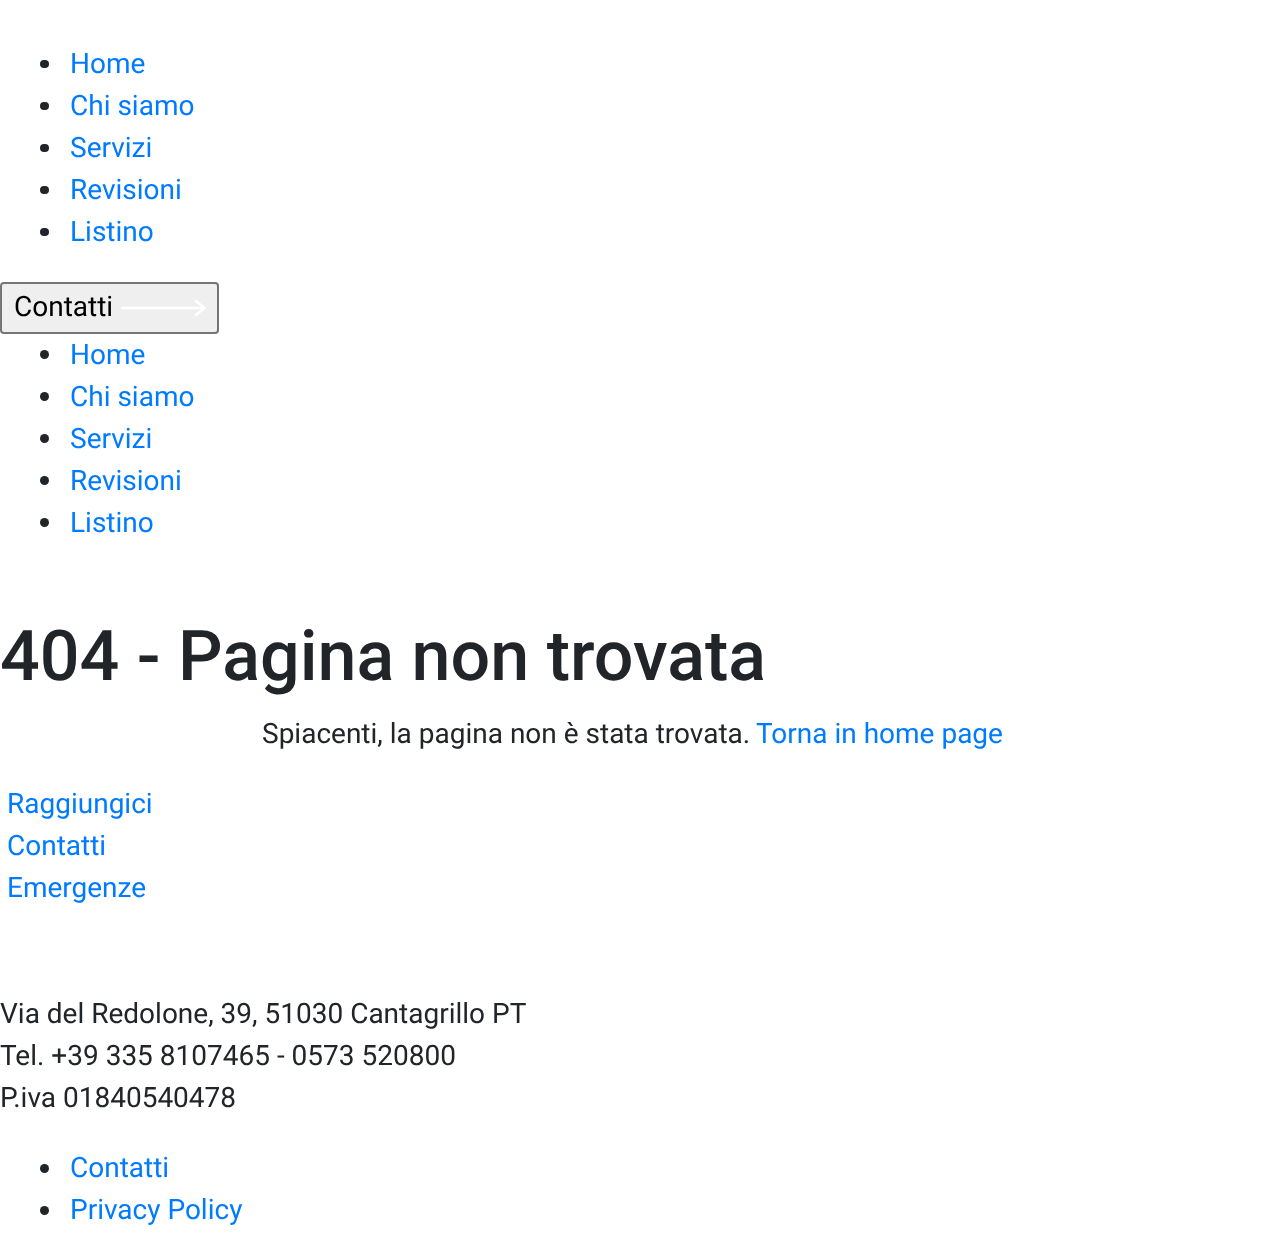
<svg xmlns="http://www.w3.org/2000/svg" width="1265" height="1246">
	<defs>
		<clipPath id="clip1"><rect x="121" y="299" width="84" height="18" /></clipPath>
	</defs>
	<rect width="100%" height="100%" fill="#FFFFFF" />
	<rect x="40" y="60" width="9" height="8" rx="4" fill="#212529" />
	<text x="70" y="73" font-family="Roboto" font-size="28" fill="#007BFF">Home</text>
	<rect x="40" y="102" width="9" height="8" rx="4" fill="#212529" />
	<text x="70" y="115" font-family="Roboto" font-size="28" fill="#007BFF">Chi siamo</text>
	<rect x="40" y="144" width="9" height="8" rx="4" fill="#212529" />
	<text x="70" y="157" font-family="Roboto" font-size="28" fill="#007BFF">Servizi</text>
	<rect x="40" y="186" width="9" height="8" rx="4" fill="#212529" />
	<text x="70" y="199" font-family="Roboto" font-size="28" fill="#007BFF">Revisioni</text>
	<rect x="40" y="228" width="9" height="8" rx="4" fill="#212529" />
	<text x="70" y="241" font-family="Roboto" font-size="28" fill="#007BFF">Listino</text>
	<rect x="1" y="283" width="217" height="50" rx="3" fill="#EFEFEF" stroke="#767676" stroke-width="2" />
	<text x="14" y="316" font-family="Roboto" font-size="28" fill="#000000">Contatti</text>
	<path d="M196 301L204.5 308L196 315" fill="none" stroke="#FFFFFF" stroke-width="2.6" stroke-linecap="round" stroke-linejoin="round" />
	<g clip-path="url(#clip1)">
		<path d="M122 308H204.5" fill="none" stroke="#FFFFFF" stroke-width="2.6" stroke-linecap="round" stroke-linejoin="round" />
	</g>
	<circle cx="44.5" cy="354.5" r="4.5" fill="#212529" />
	<text x="70" y="364" font-family="Roboto" font-size="28" fill="#007BFF">Home</text>
	<circle cx="44.5" cy="396.5" r="4.5" fill="#212529" />
	<text x="70" y="406" font-family="Roboto" font-size="28" fill="#007BFF">Chi siamo</text>
	<circle cx="44.5" cy="438.5" r="4.5" fill="#212529" />
	<text x="70" y="448" font-family="Roboto" font-size="28" fill="#007BFF">Servizi</text>
	<circle cx="44.5" cy="480.5" r="4.5" fill="#212529" />
	<text x="70" y="490" font-family="Roboto" font-size="28" fill="#007BFF">Revisioni</text>
	<circle cx="44.5" cy="522.5" r="4.5" fill="#212529" />
	<text x="70" y="532" font-family="Roboto" font-size="28" fill="#007BFF">Listino</text>
	<text x="0" y="680" font-family="Roboto" font-size="70" font-weight="500" fill="#212529">404 - Pagina non trovata</text>
	<text x="262" y="743" font-family="Roboto" font-size="28" fill="#212529">Spiacenti, la pagina non è stata trovata.</text>
	<g font-family="Roboto" font-size="28" fill="#007BFF">
		<text x="756" y="743">Torna in home page</text>
		<text x="7" y="813">Raggiungici</text>
		<text x="7" y="855">Contatti</text>
		<text x="7" y="897">Emergenze</text>
	</g>
	<g font-family="Roboto" font-size="28" fill="#212529">
		<text x="0" y="1023">Via del Redolone, 39, 51030 Cantagrillo PT</text>
		<text x="0" y="1065">Tel. +39 335 8107465 - 0573 520800</text>
		<text x="0" y="1107">P.iva 01840540478</text>
	</g>
	<circle cx="44.5" cy="1168.5" r="4.5" fill="#212529" />
	<text x="70" y="1177" font-family="Roboto" font-size="28" fill="#007BFF">Contatti</text>
	<circle cx="44.5" cy="1210.5" r="4.5" fill="#212529" />
	<text x="70" y="1219" font-family="Roboto" font-size="28" fill="#007BFF">Privacy Policy</text>
</svg>
